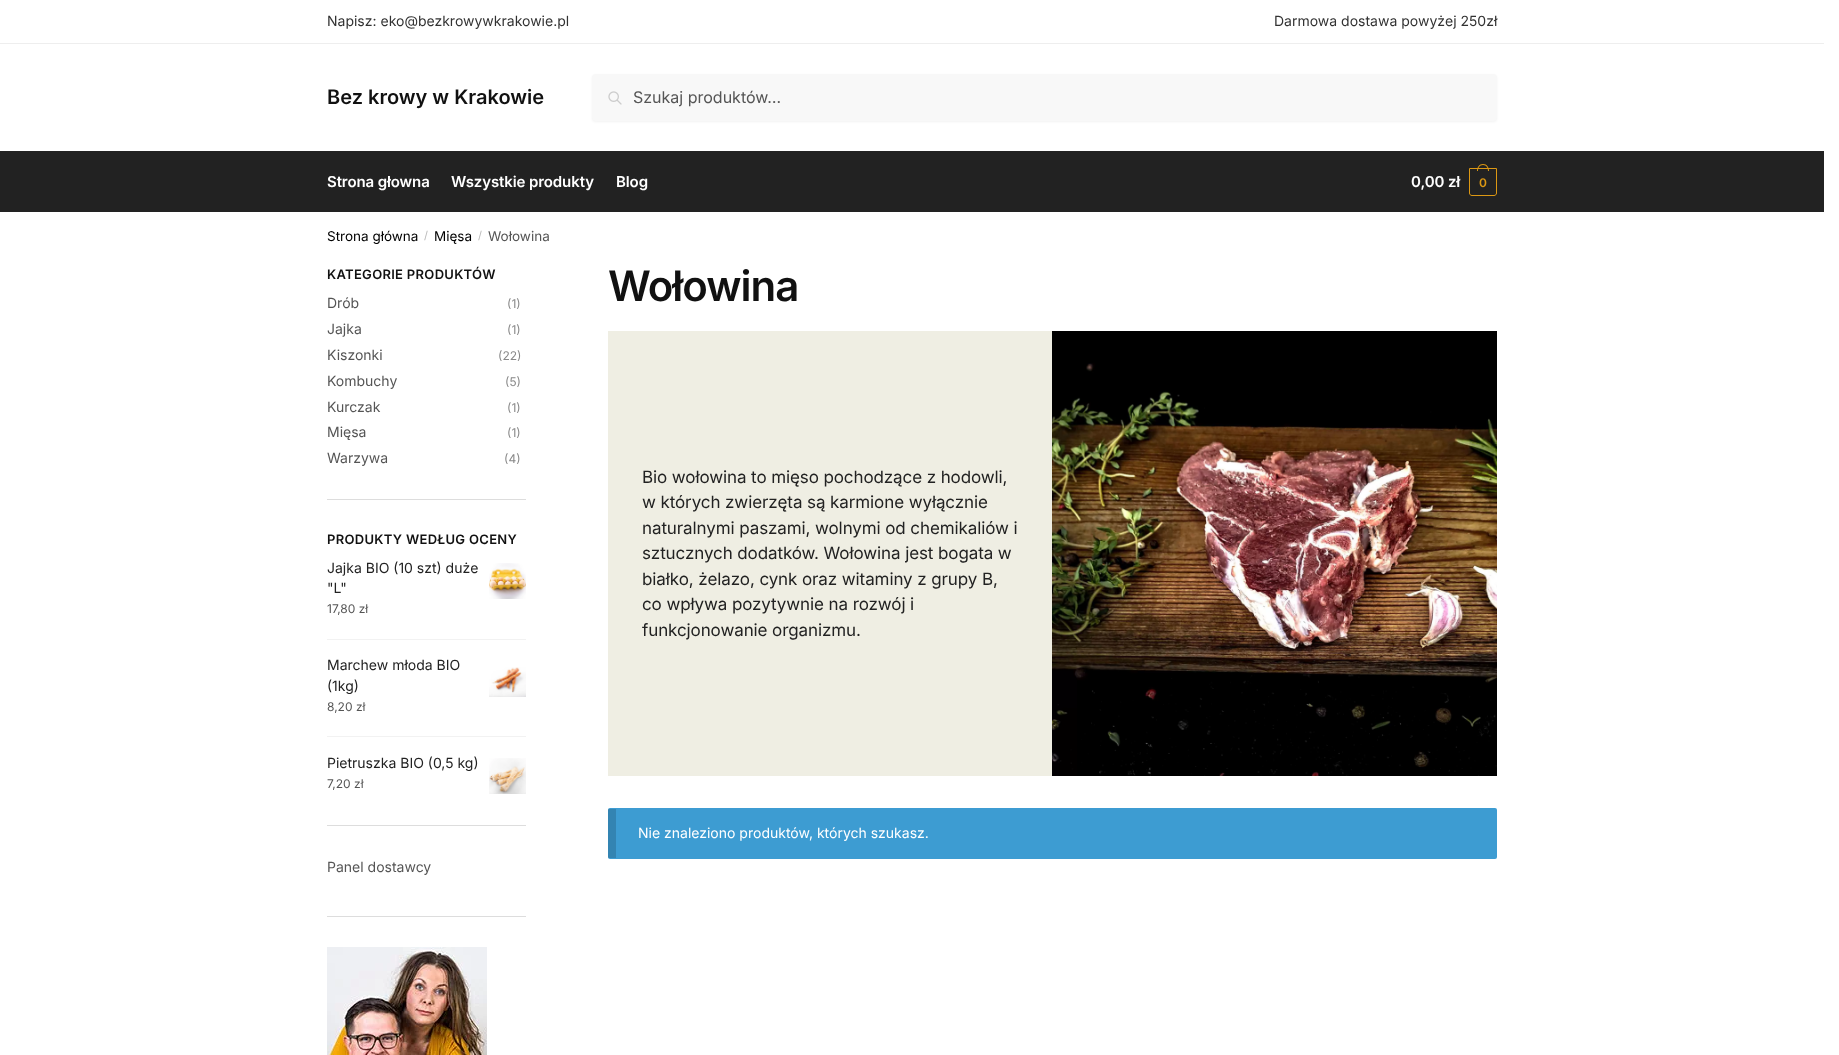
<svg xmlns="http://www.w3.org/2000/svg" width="1839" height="1055">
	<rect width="100%" height="100%" fill="#FFFFFF" />
	<rect x="0" y="43" width="1824" height="1" fill="#EEEEEE" />
	<g font-family="Inter" font-size="14" fill="#323232">
		<text x="327" y="26">Napisz: eko@bezkrowywkrakowie.pl</text>
		<text x="1274" y="26">Darmowa dostawa powyżej 250zł</text>
	</g>
	<text x="327" y="104" font-family="Inter" font-size="20" font-weight="600" fill="#111111">Bez krowy w Krakowie</text>
	<rect x="592" y="75" width="905" height="47" rx="4" fill="#000000" fill-opacity="0.05" filter="blur(1px)" />
	<rect x="592" y="74" width="905" height="47" rx="4" fill="#F8F8F8" />
	<image x="608" y="91" width="14" height="14" href="assets/img1.png" />
	<text x="633" y="103" font-family="Inter" font-size="16" fill="#555555">Szukaj produktów…</text>
	<rect x="0" y="151" width="1824" height="61" fill="#222222" />
	<g font-family="Inter" font-size="15" font-weight="600" letter-spacing="-0.1" fill="#FFFFFF">
		<text x="327" y="187">Strona głowna</text>
		<text x="451" y="187">Wszystkie produkty</text>
		<text x="616" y="187">Blog</text>
		<text x="1411" y="187">0,00 zł</text>
	</g>
	<path d="M1469.5 168.5H1496.5V193C1496.5 194.5 1495.5 195.5 1494 195.5H1472C1470.5 195.5 1469.5 194.5 1469.5 193Z" fill="none" stroke="#DC9814" />
	<path d="M1483 164C1487 164 1489 167.5 1489 171H1477C1477 167.5 1479 164 1483 164ZM1483 165C1486.5 165 1488 168 1488 171H1478C1478 168 1479.5 165 1483 165Z" fill="#DC9814" fill-rule="evenodd" />
	<text x="1479" y="187" font-family="Inter" font-size="12" font-weight="600" letter-spacing="-1" fill="#DC9814">0</text>
	<text x="327" y="241" font-family="Inter" font-size="13.5" fill="#000000">Strona główna</text>
	<text x="424" y="239" font-family="Inter" font-size="11" fill="#BBBBBB">/</text>
	<text x="434" y="241" font-family="Inter" font-size="13.5" fill="#000000">Mięsa</text>
	<text x="478" y="239" font-family="Inter" font-size="11" fill="#BBBBBB">/</text>
	<text x="488" y="241" font-family="Inter" font-size="13.5" fill="#555555">Wołowina</text>
	<rect x="327" y="499" width="199" height="1" fill="#DDDDDD" />
	<text x="327" y="279" font-family="Inter" font-size="13" font-weight="600" letter-spacing="0.3" fill="#111111">KATEGORIE PRODUKTÓW</text>
	<text x="327" y="308" font-family="Inter" font-size="14" fill="#555555">Drób</text>
	<text x="507" y="308" font-family="Inter" font-size="12" fill="#888888">(1)</text>
	<text x="327" y="334" font-family="Inter" font-size="14" fill="#555555">Jajka</text>
	<text x="507" y="334" font-family="Inter" font-size="12" fill="#888888">(1)</text>
	<text x="327" y="360" font-family="Inter" font-size="14" fill="#555555">Kiszonki</text>
	<text x="498" y="360" font-family="Inter" font-size="12" fill="#888888">(22)</text>
	<text x="327" y="386" font-family="Inter" font-size="14" fill="#555555">Kombuchy</text>
	<text x="505" y="386" font-family="Inter" font-size="12" fill="#888888">(5)</text>
	<text x="327" y="412" font-family="Inter" font-size="14" fill="#555555">Kurczak</text>
	<text x="507" y="412" font-family="Inter" font-size="12" fill="#888888">(1)</text>
	<text x="327" y="437" font-family="Inter" font-size="14" fill="#555555">Mięsa</text>
	<text x="507" y="437" font-family="Inter" font-size="12" fill="#888888">(1)</text>
	<text x="327" y="463" font-family="Inter" font-size="14" fill="#555555">Warzywa</text>
	<text x="504" y="463" font-family="Inter" font-size="12" fill="#888888">(4)</text>
	<rect x="327" y="825" width="199" height="1" fill="#DDDDDD" />
	<text x="327" y="544" font-family="Inter" font-size="13" font-weight="600" letter-spacing="0.3" fill="#111111">PRODUKTY WEDŁUG OCENY</text>
	<rect x="327" y="639" width="199" height="1" fill="#F2F2F2" />
	<text x="327" y="573" font-family="Inter" font-size="14" fill="#222222">Jajka BIO (10 szt) duże</text>
	<image x="489" y="563" width="37" height="36" href="assets/img2.png" />
	<text x="327" y="593" font-family="Inter" font-size="14" fill="#222222">"L"</text>
	<text x="327" y="613" font-family="Inter" font-size="12" fill="#555555">17,80 zł</text>
	<rect x="327" y="736" width="199" height="1" fill="#F2F2F2" />
	<g font-family="Inter" font-size="14" fill="#222222">
		<text x="327" y="670">Marchew młoda BIO</text>
		<text x="327" y="691">(1kg)</text>
	</g>
	<image x="489" y="667" width="37" height="30" href="assets/img3.png" />
	<text x="327" y="711" font-family="Inter" font-size="12" fill="#555555">8,20 zł</text>
	<text x="327" y="768" font-family="Inter" font-size="14" fill="#222222">Pietruszka BIO (0,5 kg)</text>
	<image x="489" y="758" width="37" height="36" href="assets/img4.png" />
	<text x="327" y="788" font-family="Inter" font-size="12" fill="#555555">7,20 zł</text>
	<rect x="327" y="916" width="199" height="1" fill="#DDDDDD" />
	<text x="327" y="872" font-family="Inter" font-size="14" fill="#555555">Panel dostawcy</text>
	<image x="327" y="947" width="160" height="108" href="assets/img5.png" />
	<text x="608" y="301" font-family="Inter" font-size="42" font-weight="600" letter-spacing="-1" fill="#111111">Wołowina</text>
	<rect x="608" y="331" width="444" height="445" fill="#EFEEE3" />
	<g font-family="Inter" font-size="17" letter-spacing="-0.1" fill="#222222">
		<text x="642" y="483">Bio wołowina to mięso pochodzące z hodowli,</text>
		<text x="642" y="508">w których zwierzęta są karmione wyłącznie</text>
		<text x="642" y="534">naturalnymi paszami, wolnymi od chemikaliów i</text>
		<text x="642" y="559">sztucznych dodatków. Wołowina jest bogata w</text>
		<text x="642" y="585">białko, żelazo, cynk oraz witaminy z grupy B,</text>
		<text x="642" y="610">co wpływa pozytywnie na rozwój i</text>
		<text x="642" y="636">funkcjonowanie organizmu.</text>
	</g>
	<image x="1052" y="331" width="445" height="445" href="assets/img6.png" />
	<rect x="608" y="808" width="889" height="51" rx="2" fill="#3D9CD2" />
	<rect x="608" y="809" width="8" height="49" fill="#000000" fill-opacity="0.15" />
	<text x="638" y="838" font-family="Inter" font-size="14" fill="#FFFFFF">Nie znaleziono produktów, których szukasz.</text>
</svg>
